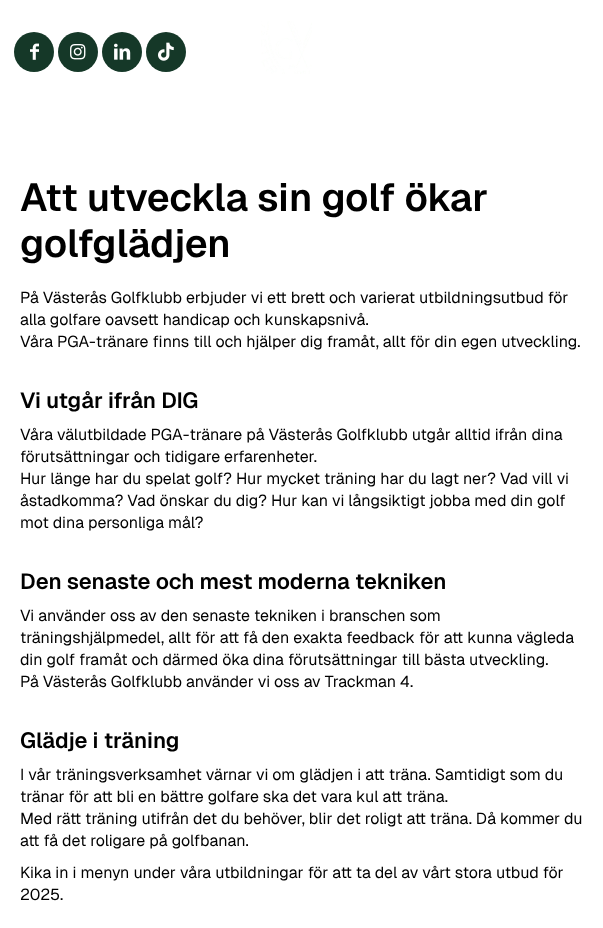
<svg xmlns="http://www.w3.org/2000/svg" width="603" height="928">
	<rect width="100%" height="100%" fill="#FFFFFF" />
	<circle cx="34" cy="52" r="20" fill="#153828" />
	<image x="30" y="43" width="9" height="17" href="assets/img1.png" />
	<circle cx="78" cy="52" r="20" fill="#153828" />
	<image x="70" y="44" width="16" height="16" href="assets/img2.png" />
	<circle cx="122" cy="52" r="20" fill="#153828" />
	<image x="114" y="43" width="17" height="17" href="assets/img3.png" />
	<circle cx="166" cy="52" r="20" fill="#153828" />
	<image x="158" y="42" width="16" height="19" href="assets/img4.png" />
	<image x="261" y="21" width="51" height="53" href="assets/img5.png" />
	<g font-family="Geist" font-size="39" font-weight="600" letter-spacing="-0.1" fill="#000000">
		<text x="20" y="211">Att utveckla sin golf ökar</text>
		<text x="20" y="257">golfglädjen</text>
	</g>
	<g font-family="Geist" font-size="16" fill="#000000">
		<text x="20" y="303">På Västerås Golfklubb erbjuder vi ett brett och varierat utbildningsutbud för</text>
		<text x="20" y="325">alla golfare oavsett handicap och kunskapsnivå.</text>
		<text x="20" y="347">Våra PGA-tränare finns till och hjälper dig framåt, allt för din egen utveckling.</text>
	</g>
	<text x="20" y="408" font-family="Geist" font-size="22" font-weight="600" letter-spacing="-0.05" fill="#000000">Vi utgår ifrån DIG</text>
	<g font-family="Geist" font-size="16" fill="#000000">
		<text x="20" y="440">Våra välutbildade PGA-tränare på Västerås Golfklubb utgår alltid ifrån dina</text>
		<text x="20" y="462">förutsättningar och tidigare erfarenheter.</text>
		<text x="20" y="484">Hur länge har du spelat golf? Hur mycket träning har du lagt ner? Vad vill vi</text>
		<text x="20" y="506">åstadkomma? Vad önskar du dig? Hur kan vi långsiktigt jobba med din golf</text>
		<text x="20" y="528">mot dina personliga mål?</text>
	</g>
	<text x="20" y="589" font-family="Geist" font-size="22" font-weight="600" letter-spacing="-0.05" fill="#000000">Den senaste och mest moderna tekniken</text>
	<g font-family="Geist" font-size="16" fill="#000000">
		<text x="20" y="621">Vi använder oss av den senaste tekniken i branschen som</text>
		<text x="20" y="643">träningshjälpmedel, allt för att få den exakta feedback för att kunna vägleda</text>
		<text x="20" y="665">din golf framåt och därmed öka dina förutsättningar till bästa utveckling.</text>
		<text x="20" y="687">På Västerås Golfklubb använder vi oss av Trackman 4.</text>
	</g>
	<text x="20" y="748" font-family="Geist" font-size="22" font-weight="600" letter-spacing="-0.05" fill="#000000">Glädje i träning</text>
	<g font-family="Geist" font-size="16" fill="#000000">
		<text x="20" y="780">I vår träningsverksamhet värnar vi om glädjen i att träna. Samtidigt som du</text>
		<text x="20" y="802">tränar för att bli en bättre golfare ska det vara kul att träna.</text>
		<text x="20" y="824">Med rätt träning utifrån det du behöver, blir det roligt att träna. Då kommer du</text>
		<text x="20" y="846">att få det roligare på golfbanan.</text>
		<text x="20" y="878">Kika in i menyn under våra utbildningar för att ta del av vårt stora utbud för</text>
		<text x="20" y="900">2025.</text>
	</g>
</svg>
